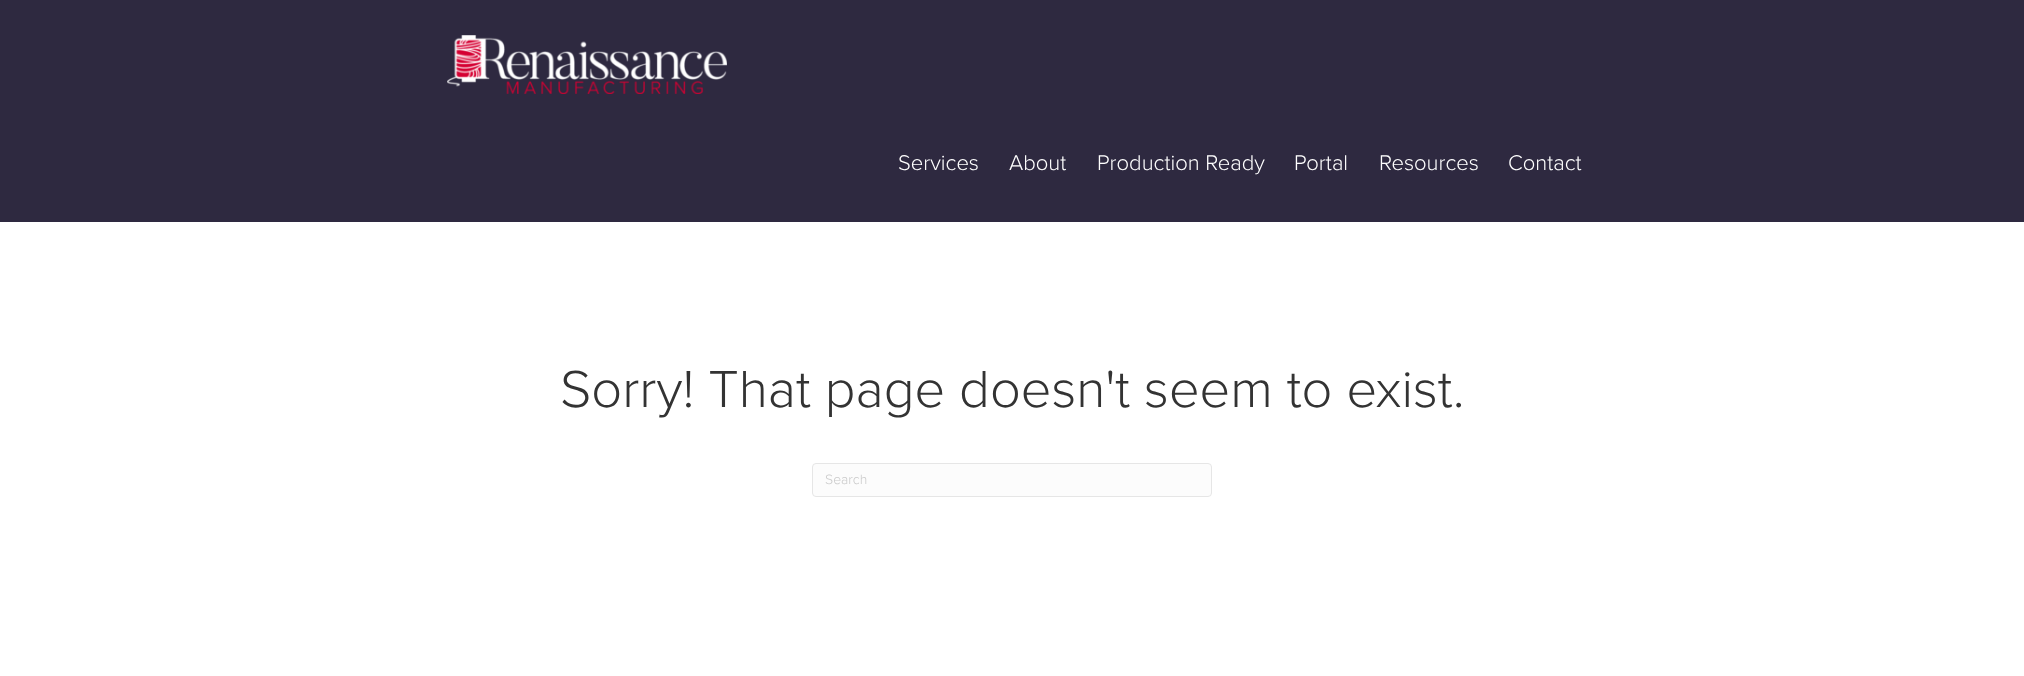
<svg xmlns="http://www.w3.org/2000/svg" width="2024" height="676">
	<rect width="100%" height="100%" fill="#FFFFFF" />
	<rect x="0" y="0" width="2024" height="222" fill="#2E2940" />
	<image x="447" y="35" width="280" height="59" href="assets/img1.png" />
	<g font-family="Proxima Nova" font-size="22" font-weight="300" fill="#FFFFFF">
		<text x="898" y="170">Services</text>
		<text x="1009" y="170">About</text>
		<text x="1097" y="170">Production Ready</text>
		<text x="1294" y="170">Portal</text>
		<text x="1379" y="170">Resources</text>
		<text x="1508" y="170">Contact</text>
	</g>
	<text x="560" y="407" font-family="Proxima Nova" font-size="54" font-weight="300" fill="#333333">Sorry! That page doesn't seem to exist.</text>
	<rect x="812.5" y="463.5" width="399" height="33" rx="3.5" fill="#FCFCFC" stroke="#E6E6E6" />
	<text x="825" y="484" font-family="Proxima Nova" font-size="14" font-weight="300" fill="#CACACA">Search</text>
</svg>
